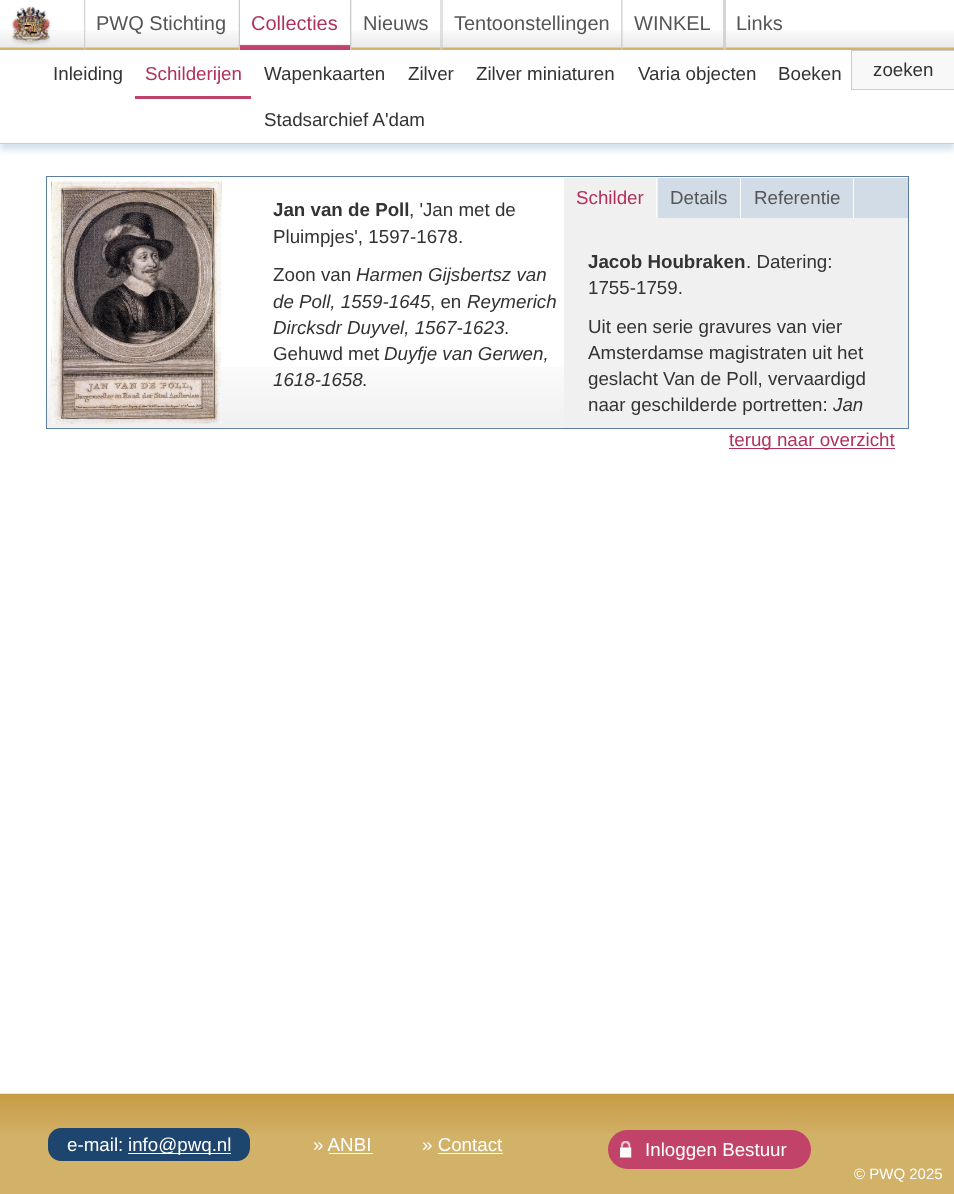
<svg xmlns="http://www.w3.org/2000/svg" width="954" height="1194">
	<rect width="100%" height="100%" fill="#FFFFFF" />
	<image x="0" y="30" width="954" height="20" href="assets/img1.png" />
	<image x="11" y="6" width="40" height="39" href="assets/img2.png" />
	<image x="84" y="0" width="2" height="50" href="assets/img3.png" />
	<text x="96" y="30" font-family="Liberation Sans" font-size="20" fill="#555555">PWQ Stichting</text>
	<image x="238" y="0" width="2" height="50" href="assets/img4.png" />
	<image x="240" y="30" width="110" height="20" href="assets/img5.png" />
	<text x="251" y="30" font-family="Liberation Sans" font-size="20" fill="#B1305E">Collecties</text>
	<image x="350" y="0" width="2" height="50" href="assets/img6.png" />
	<text x="363" y="30" font-family="Liberation Sans" font-size="20" fill="#555555">Nieuws</text>
	<rect x="440" y="0" width="3" height="50" fill="#CACACA" fill-opacity="0.56" />
	<text x="454" y="30" font-family="Liberation Sans" font-size="20" fill="#555555">Tentoonstellingen</text>
	<image x="621" y="0" width="2" height="50" href="assets/img7.png" />
	<text x="634" y="30" font-family="Liberation Sans" font-size="20" fill="#555555">WINKEL</text>
	<rect x="723" y="0" width="3" height="50" fill="#CBCBCB" fill-opacity="0.81" />
	<text x="736" y="30" font-family="Liberation Sans" font-size="20" fill="#555555">Links</text>
	<rect x="0" y="56" width="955" height="94" fill="#D5E1EE" filter="blur(3px)" />
	<rect x="0" y="51" width="954" height="92" fill="#FFFFFF" />
	<rect x="0" y="143" width="954" height="1" fill="#CCCCCC" />
	<text x="53" y="80" font-family="Liberation Sans" font-size="18.75" fill="#333333">Inleiding</text>
	<rect x="135" y="96" width="116" height="3" fill="#C14369" />
	<text x="145" y="80" font-family="Liberation Sans" font-size="18.75" fill="#B1305E">Schilderijen</text>
	<g font-family="Liberation Sans" font-size="18.75" fill="#333333">
		<text x="264" y="80">Wapenkaarten</text>
		<text x="408" y="80">Zilver</text>
		<text x="476" y="80">Zilver miniaturen</text>
		<text x="638" y="80">Varia objecten</text>
		<text x="778" y="80">Boeken</text>
		<text x="264" y="126">Stadsarchief A'dam</text>
	</g>
	<rect x="851.5" y="50.5" width="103" height="39" fill="#F8F8F8" stroke="#CCCCCC" />
	<text x="873" y="76" font-family="Liberation Sans" font-size="18.75" fill="#333333">zoeken</text>
	<image x="47" y="367" width="517" height="61" href="assets/img8.png" />
	<rect x="46.5" y="176.5" width="862" height="252" fill="none" stroke="#5B7EA2" />
	<image x="51" y="181" width="171" height="243" href="assets/img9.png" />
	<rect x="658" y="178" width="250" height="40" fill="#D2DCE6" />
	<rect x="564" y="178" width="94" height="40" fill="#F0F0F0" />
	<rect x="656" y="178" width="1" height="40" fill="#FFFFFF" />
	<text x="576" y="204" font-family="Liberation Sans" font-size="18.75" fill="#B1305E">Schilder</text>
	<rect x="740" y="178" width="1" height="40" fill="#FFFFFF" />
	<text x="670" y="204" font-family="Liberation Sans" font-size="18.75" fill="#555555">Details</text>
	<rect x="853" y="178" width="1" height="40" fill="#FFFFFF" />
	<text x="754" y="204" font-family="Liberation Sans" font-size="18.75" fill="#555555">Referentie</text>
	<text x="273" y="216" font-family="Liberation Sans" font-size="18.75" font-weight="700" fill="#333333">Jan van de Poll</text>
	<g font-family="Liberation Sans" font-size="18.75" fill="#333333">
		<text x="409" y="216">, 'Jan met de</text>
		<text x="273" y="243">Pluimpjes', 1597-1678.</text>
		<text x="273" y="281">Zoon van</text>
	</g>
	<g font-family="Liberation Sans" font-size="18.75" font-style="italic" fill="#333333">
		<text x="356" y="281">Harmen Gijsbertsz van</text>
		<text x="273" y="308">de Poll, 1559-1645</text>
	</g>
	<text x="430" y="308" font-family="Liberation Sans" font-size="18.75" fill="#333333">, en</text>
	<g font-family="Liberation Sans" font-size="18.75" font-style="italic" fill="#333333">
		<text x="467" y="308">Reymerich</text>
		<text x="273" y="334">Dircksdr Duyvel, 1567-1623</text>
	</g>
	<g font-family="Liberation Sans" font-size="18.75" fill="#333333">
		<text x="504" y="334">.</text>
		<text x="273" y="360">Gehuwd met</text>
	</g>
	<g font-family="Liberation Sans" font-size="18.75" font-style="italic" fill="#333333">
		<text x="384" y="360">Duyfje van Gerwen,</text>
		<text x="273" y="386">1618-1658</text>
	</g>
	<text x="362" y="386" font-family="Liberation Sans" font-size="18.75" fill="#333333">.</text>
	<rect x="564" y="218" width="344" height="210" fill="#F0F0F0" />
	<text x="588" y="268" font-family="Liberation Sans" font-size="18.75" font-weight="700" fill="#333333">Jacob Houbraken</text>
	<g font-family="Liberation Sans" font-size="18.75" fill="#333333">
		<text x="746" y="268">. Datering:</text>
		<text x="588" y="294">1755-1759.</text>
		<text x="588" y="333">Uit een serie gravures van vier</text>
		<text x="588" y="359">Amsterdamse magistraten uit het</text>
		<text x="588" y="385">geslacht Van de Poll, vervaardigd</text>
		<text x="588" y="411">naar geschilderde portretten:</text>
	</g>
	<text x="833" y="411" font-family="Liberation Sans" font-size="18.75" font-style="italic" fill="#333333">Jan</text>
	<rect x="729" y="448" width="166" height="1" fill="#B1305E" />
	<text x="729" y="446" font-family="Liberation Sans" font-size="18.75" fill="#B1305E">terug naar overzicht</text>
	<rect x="0" y="1133" width="954" height="61" fill="#D2B169" />
	<image x="0" y="1093" width="954" height="40" href="assets/img10.png" />
	<path d="M61 1128H128V1161H61C54 1161 48 1155 48 1148V1141C48 1134 54 1128 61 1128Z" fill="#1D456D" />
	<text x="67" y="1151" font-family="Liberation Sans" font-size="18.75" fill="#FFFFFF">e-mail:</text>
	<path d="M128 1128H237C244 1128 250 1134 250 1141V1148C250 1155 244 1161 237 1161H128Z" fill="#1D456D" />
	<rect x="128" y="1153" width="103" height="1" fill="#FFFFFF" />
	<g font-family="Liberation Sans" font-size="18.75" fill="#FFFFFF">
		<text x="128" y="1151">info@pwq.nl</text>
		<text x="313" y="1151">» ANBI</text>
	</g>
	<rect x="329" y="1153" width="44" height="1" fill="#FFFFFF" />
	<text x="422" y="1151" font-family="Liberation Sans" font-size="18.75" fill="#FFFFFF">» Contact</text>
	<rect x="438" y="1153" width="65" height="1" fill="#FFFFFF" />
	<rect x="608" y="1130" width="203" height="39" rx="19.5" fill="#C24369" />
	<image x="620" y="1141" width="12" height="17" href="assets/img11.png" />
	<text x="645" y="1156" font-family="Liberation Sans" font-size="18.75" fill="#FFFFFF">Inloggen Bestuur</text>
	<text x="854" y="1179" font-family="Liberation Sans" font-size="15" fill="#FFFFFF">© PWQ 2025</text>
</svg>
